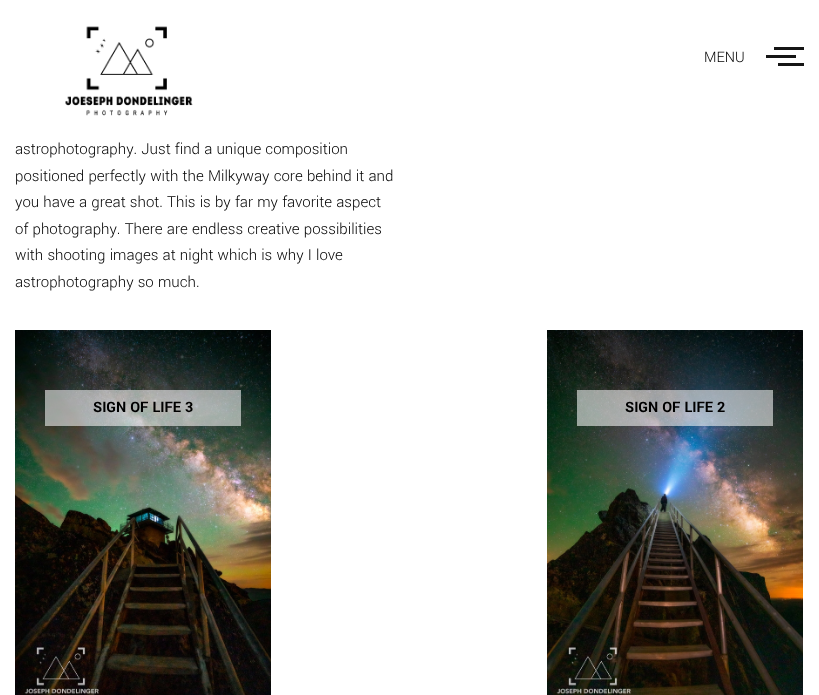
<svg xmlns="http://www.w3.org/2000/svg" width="819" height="695">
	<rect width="100%" height="100%" fill="#FFFFFF" />
	<image x="65" y="26" width="128" height="90" href="assets/img1.png" />
	<text x="704" y="62" font-family="Yantramanav" font-size="16" font-weight="300" fill="#000000">MENU</text>
	<rect x="774" y="47" width="30" height="3" fill="#151515" />
	<rect x="766" y="55" width="30" height="3" fill="#151515" />
	<rect x="778" y="63" width="26" height="3" fill="#151515" />
	<g font-family="Yantramanav" font-size="16.75" font-weight="300" fill="#000000">
		<text x="15" y="154">astrophotography. Just find a unique composition</text>
		<text x="15" y="181">positioned perfectly with the Milkyway core behind it and</text>
		<text x="15" y="207">you have a great shot. This is by far my favorite aspect</text>
		<text x="15" y="234">of photography. There are endless creative possibilities</text>
		<text x="15" y="260">with shooting images at night which is why I love</text>
		<text x="15" y="287">astrophotography so much.</text>
	</g>
	<image x="15" y="330" width="256" height="365" href="assets/img2.png" />
	<rect x="45" y="390" width="196" height="36" fill="#FFFFFF" fill-opacity="0.56" />
	<text x="93" y="412" font-family="Yantramanav" font-size="16" font-weight="700" fill="#000000">SIGN OF LIFE 3</text>
	<image x="547" y="330" width="256" height="365" href="assets/img3.png" />
	<rect x="577" y="390" width="196" height="36" fill="#FFFFFF" fill-opacity="0.56" />
	<text x="625" y="412" font-family="Yantramanav" font-size="16" font-weight="700" fill="#000000">SIGN OF LIFE 2</text>
</svg>
